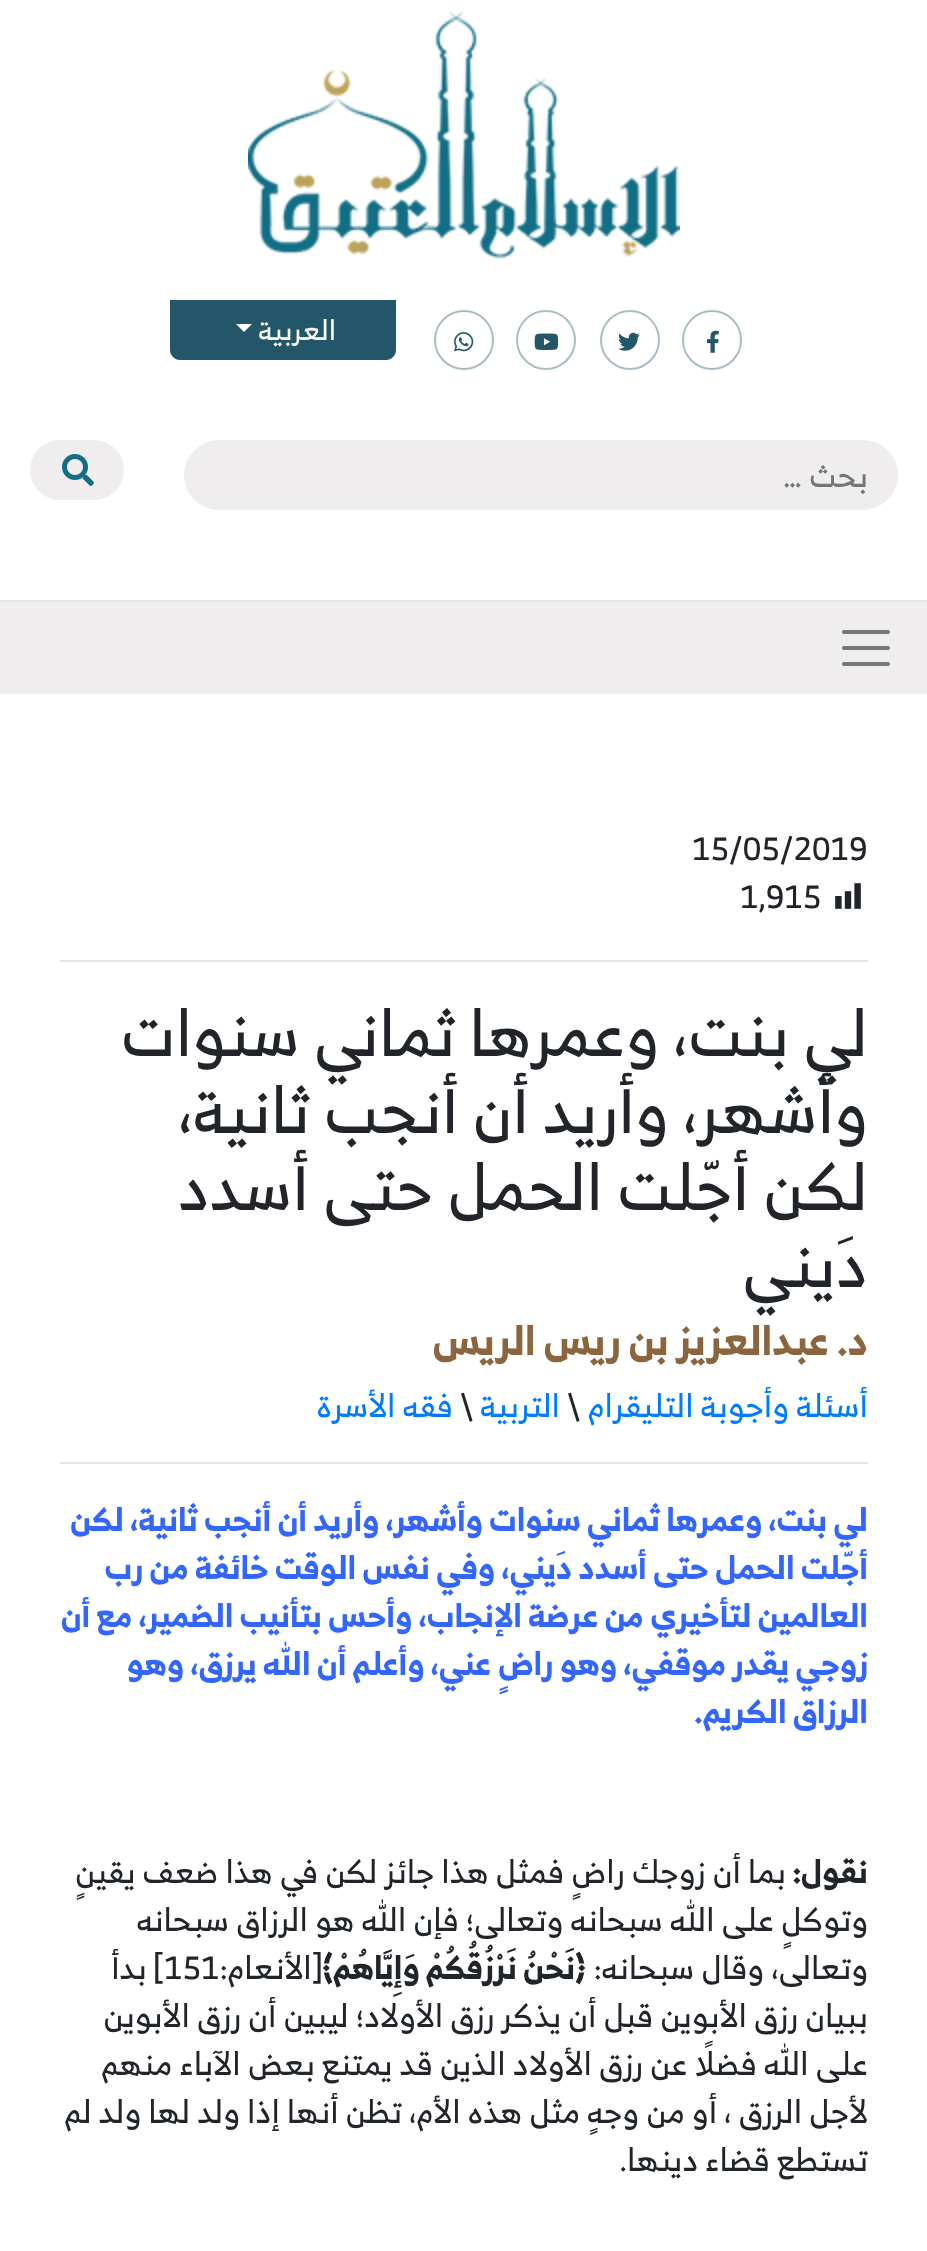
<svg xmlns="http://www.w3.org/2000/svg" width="927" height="2251">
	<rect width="100%" height="100%" fill="#FFFFFF" />
	<rect x="0" y="600" width="927" height="2" fill="#E5E5E5" />
	<image x="248" y="10" width="432" height="249" href="assets/img1.png" />
	<circle cx="712" cy="340" r="29" fill="none" stroke="#A9BDC4" stroke-width="2" />
	<image x="707" y="330" width="12" height="23" href="assets/img2.png" />
	<circle cx="630" cy="340" r="29" fill="none" stroke="#A9BDC4" stroke-width="2" />
	<image x="618" y="332" width="22" height="19" href="assets/img3.png" />
	<circle cx="546" cy="340" r="29" fill="none" stroke="#A9BDC4" stroke-width="2" />
	<image x="534" y="333" width="25" height="17" href="assets/img4.png" />
	<circle cx="464" cy="340" r="29" fill="none" stroke="#A9BDC4" stroke-width="2" />
	<image x="454" y="332" width="20" height="20" href="assets/img5.png" />
	<path d="M170 300H396V350C396 355.5 391.5 360 386 360H180C174.5 360 170 355.5 170 350Z" fill="#235669" />
	<text x="336" y="340" font-family="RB" font-size="28" direction="rtl" fill="#FFFFFF">العربية</text>
	<path d="M236 324H252L244 332Z" fill="#FFFFFF" />
	<rect x="184" y="440" width="714" height="70" rx="35" fill="#EFEDEE" />
	<text x="868" y="487" font-family="RB" font-size="32" direction="rtl" fill="#757575">بحث …</text>
	<rect x="30" y="440" width="94" height="60" rx="30" fill="#EFEDEE" />
	<image x="62" y="454" width="32" height="32" href="assets/img6.png" />
	<rect x="0" y="602" width="927" height="92" fill="#EFEDEE" />
	<path d="M844 632H888M844 648H888M844 664H888" fill="none" stroke="#787777" stroke-width="4" stroke-linecap="round" />
	<text x="692" y="860" font-family="RB" font-size="32" fill="#212529">15/05/2019</text>
	<image x="835" y="883" width="26" height="26" href="assets/img7.png" />
	<text x="740" y="908" font-family="RB" font-size="32" fill="#212529">1٬915</text>
	<rect x="60" y="960" width="808" height="2" fill="#E6E6E6" />
	<g font-family="RB" font-size="64" direction="rtl" fill="#212529">
		<text x="868" y="1056">لي بنت، وعمرها ثماني سنوات</text>
		<text x="868" y="1133">وأشهر، وأريد أن أنجب ثانية،</text>
		<text x="868" y="1210">لكن أجّلت الحمل حتى أسدد</text>
		<text x="868" y="1287">دَيني</text>
	</g>
	<text x="868" y="1355" font-family="RB" font-size="40" font-weight="700" direction="rtl" fill="#8B653E">د. عبدالعزيز بن ريس الريس</text>
	<text x="868" y="1417" font-family="RB" font-size="32" direction="rtl" fill="#007BFF">أسئلة وأجوبة التليقرام</text>
	<text x="567" y="1417" font-family="RB" font-size="32" fill="#212529">\</text>
	<text x="560" y="1417" font-family="RB" font-size="32" direction="rtl" fill="#007BFF">التربية</text>
	<text x="460" y="1417" font-family="RB" font-size="32" fill="#212529">\</text>
	<text x="453" y="1417" font-family="RB" font-size="32" direction="rtl" fill="#007BFF">فقه الأسرة</text>
	<rect x="60" y="1462" width="808" height="2" fill="#E6E6E6" />
	<g font-family="RB" font-size="32" font-weight="700" direction="rtl" fill="#3366FF">
		<text x="868" y="1531">لي بنت، وعمرها ثماني سنوات وأشهر، وأريد أن أنجب ثانية، لكن</text>
		<text x="868" y="1579">أجّلت الحمل حتى أسدد دَيني، وفي نفس الوقت خائفة من رب</text>
		<text x="868" y="1627">العالمين لتأخيري من عرضة الإنجاب، وأحس بتأنيب الضمير، مع أن</text>
		<text x="868" y="1675">زوجي يقدر موقفي، وهو راضٍ عني، وأعلم أن الله يرزق، وهو</text>
		<text x="868" y="1723">الرزاق الكريم.</text>
	</g>
	<text x="868" y="1883" font-family="RB" font-size="32" font-weight="700" direction="rtl" fill="#212529">نقول:</text>
	<g font-family="RB" font-size="32" direction="rtl" fill="#212529">
		<text x="786" y="1883">بما أن زوجك راضٍ فمثل هذا جائز لكن في هذا ضعف يقينٍ</text>
		<text x="868" y="1931">وتوكلٍ على الله سبحانه وتعالى؛ فإن الله هو الرزاق سبحانه</text>
		<text x="868" y="1979">وتعالى، وقال سبحانه:</text>
	</g>
	<text x="587" y="1979" font-family="RB" font-size="32" font-weight="700" direction="rtl" fill="#212529">﴿نَحْنُ نَرْزُقُكُمْ وَإِيَّاهُمْ﴾</text>
	<text x="322" y="1979" font-family="RB" font-size="32" direction="rtl" fill="#212529">[الأنعام:</text>
	<text x="164" y="1979" font-family="RB" font-size="32" fill="#212529">151</text>
	<g font-family="RB" font-size="32" direction="rtl" fill="#212529">
		<text x="164" y="1979">] بدأ</text>
		<text x="868" y="2027">ببيان رزق الأبوين قبل أن يذكر رزق الأولاد؛ ليبين أن رزق الأبوين</text>
		<text x="868" y="2075">على الله فضلًا عن رزق الأولاد الذين قد يمتنع بعض الآباء منهم</text>
		<text x="868" y="2123">لأجل الرزق ، أو من وجهٍ مثل هذه الأم، تظن أنها إذا ولد لها ولد لم</text>
		<text x="868" y="2171">تستطع قضاء دينها.</text>
	</g>
</svg>
